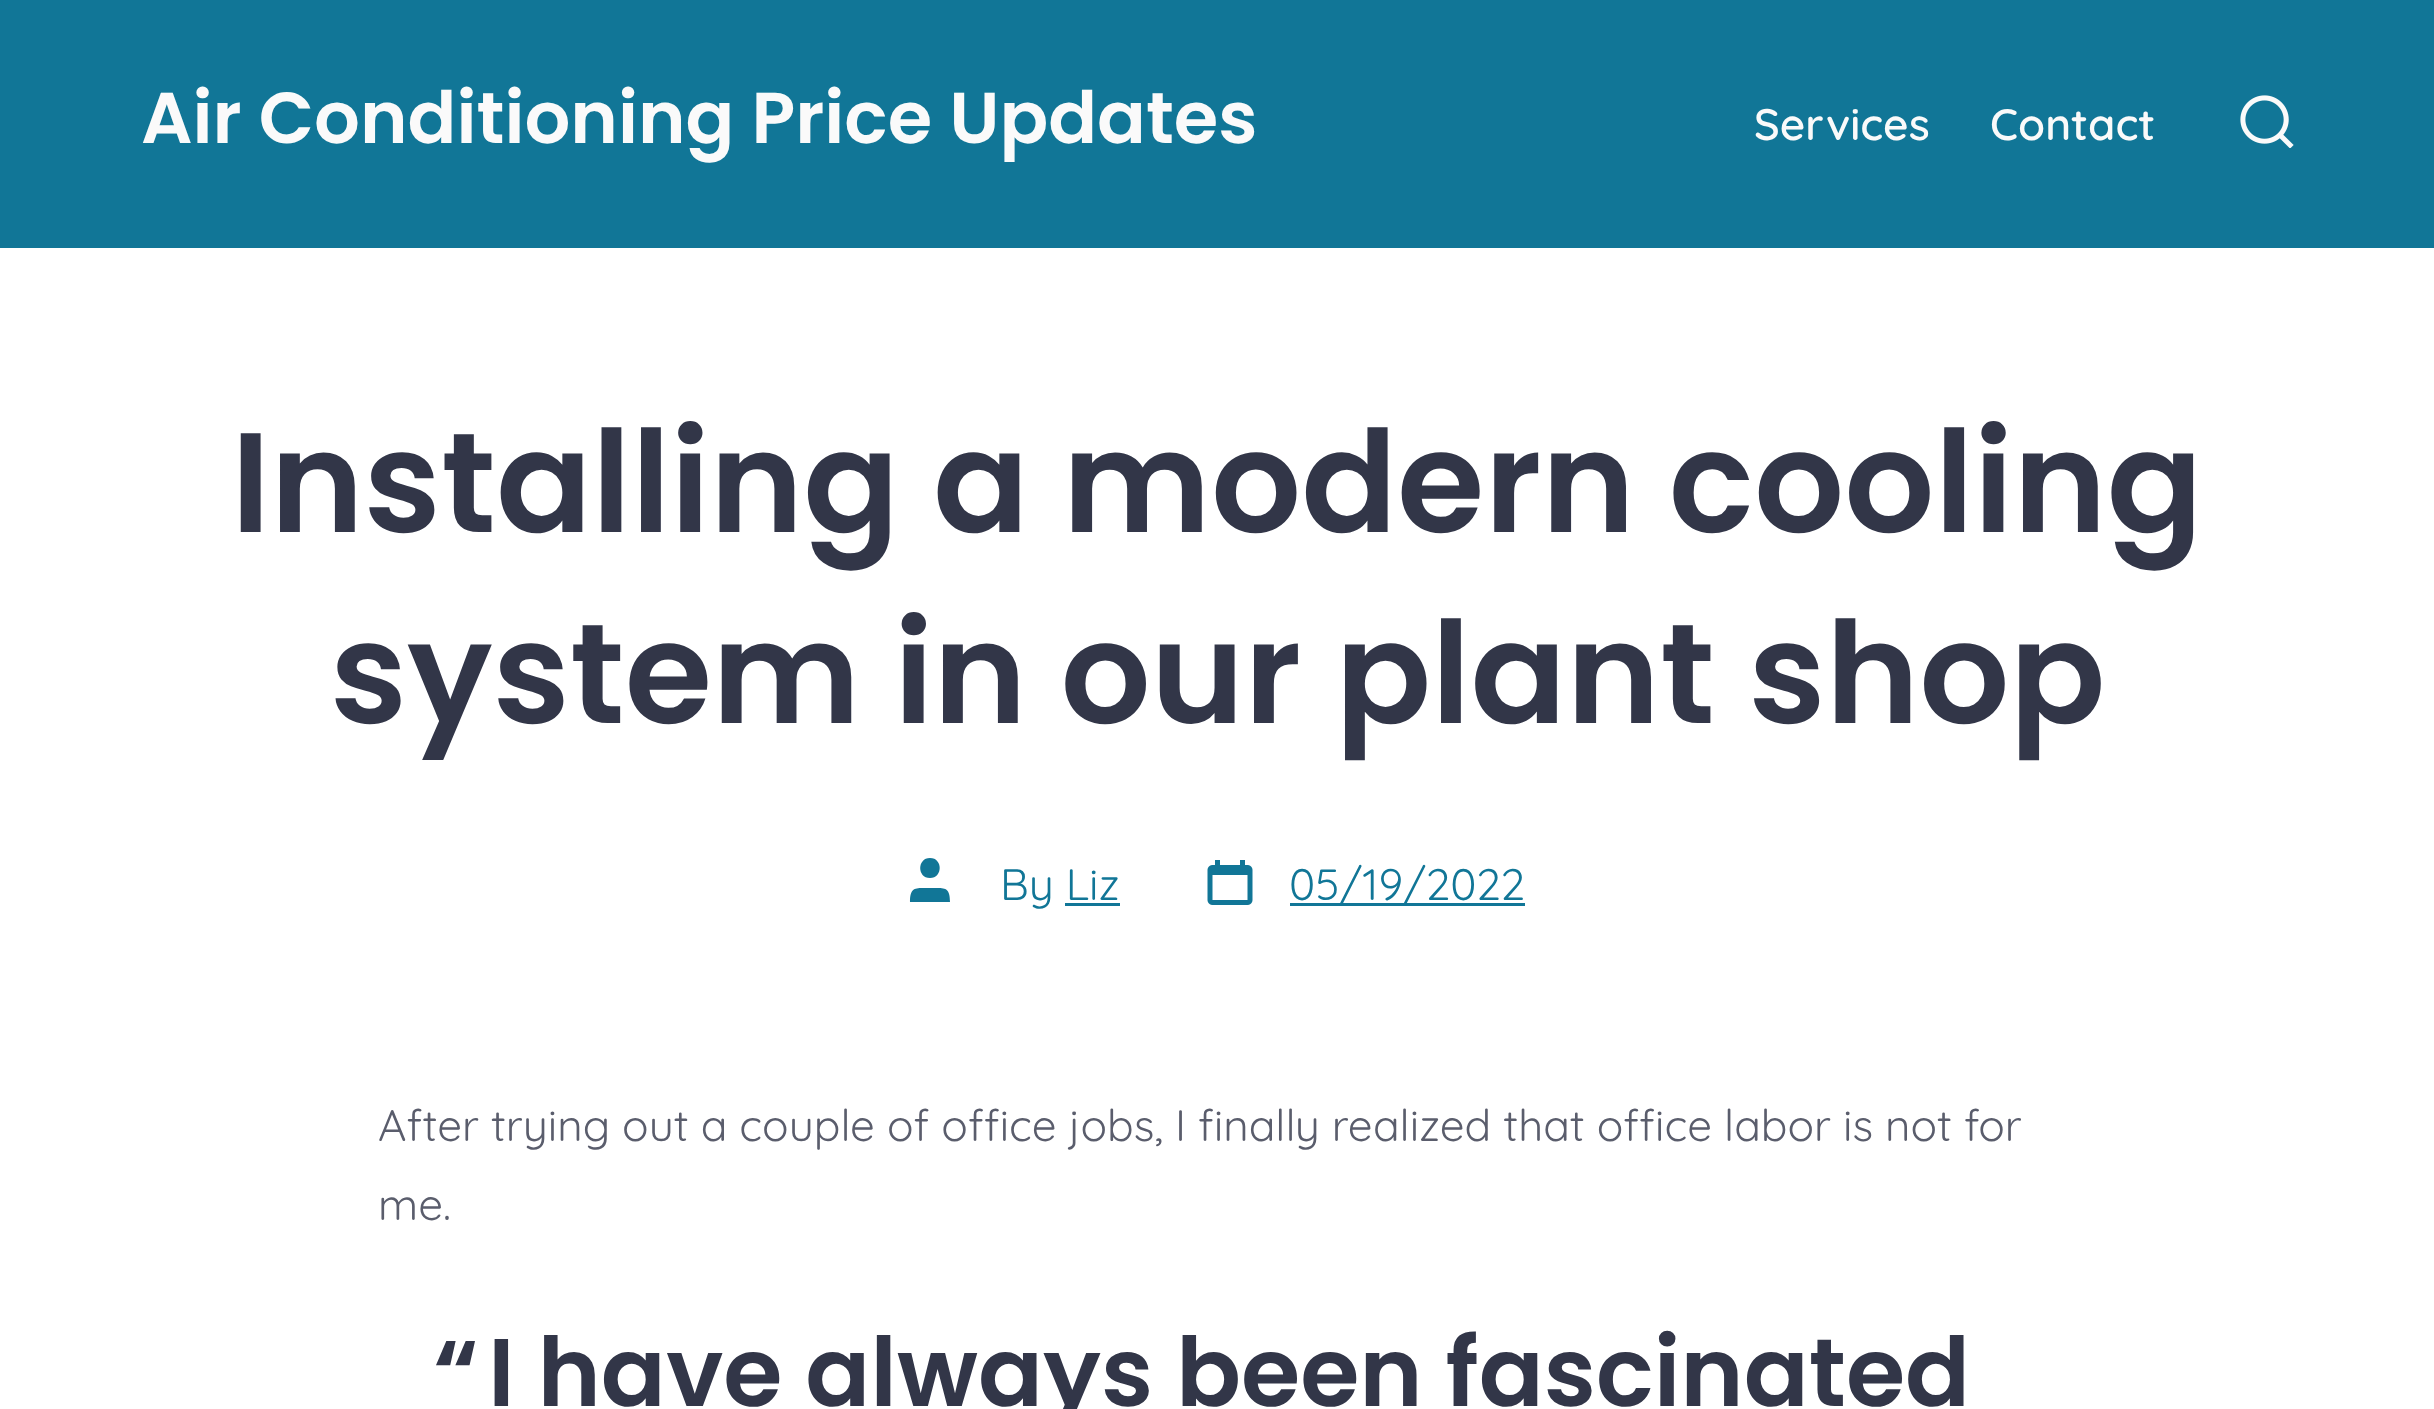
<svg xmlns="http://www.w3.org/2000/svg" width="2434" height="1409">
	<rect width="100%" height="100%" fill="#FFFFFF" />
	<rect x="0" y="0" width="2434" height="248" fill="#117697" />
	<text x="141" y="143" font-family="Poppins" font-size="72" font-weight="600" fill="#FAFAFA">Air Conditioning Price Updates</text>
	<g font-family="Quicksand" font-size="44" font-weight="600" fill="#FAFAFA">
		<text x="1754" y="140">Services</text>
		<text x="1990" y="140">Contact</text>
	</g>
	<image x="2240" y="95" width="54" height="53" href="assets/img1.png" />
	<g font-family="Poppins" font-size="141.5" font-weight="600" fill="#323648">
		<text x="231" y="532">Installing a modern cooling</text>
		<text x="330" y="723">system in our plant shop</text>
	</g>
	<path d="M950 902H910C910 886 916 888 930 888C944 888 950 886 950 902ZM930 878C917 878 917 858 930 858C943 858 943 878 930 878Z" fill="#117697" />
	<text x="1000" y="900" font-family="Quicksand" font-size="44" fill="#117697">By Liz</text>
	<rect x="1065" y="903" width="55" height="3" fill="#117697" />
	<image x="1207" y="860" width="46" height="45" href="assets/img2.png" />
	<rect x="1290" y="903" width="235" height="3" fill="#117697" />
	<text x="1289" y="900" font-family="Quicksand" font-size="44" fill="#117697">05/19/2022</text>
	<g font-family="Quicksand" font-size="44" fill="#5A5D6C">
		<text x="378" y="1141">After trying out a couple of office jobs, I finally realized that office labor is not for</text>
		<text x="378" y="1220">me.</text>
	</g>
	<g font-family="Poppins" font-size="95.9" font-weight="600" fill="#323648">
		<text x="433" y="1408">“</text>
		<text x="488" y="1406">I have always been fascinated</text>
	</g>
</svg>
